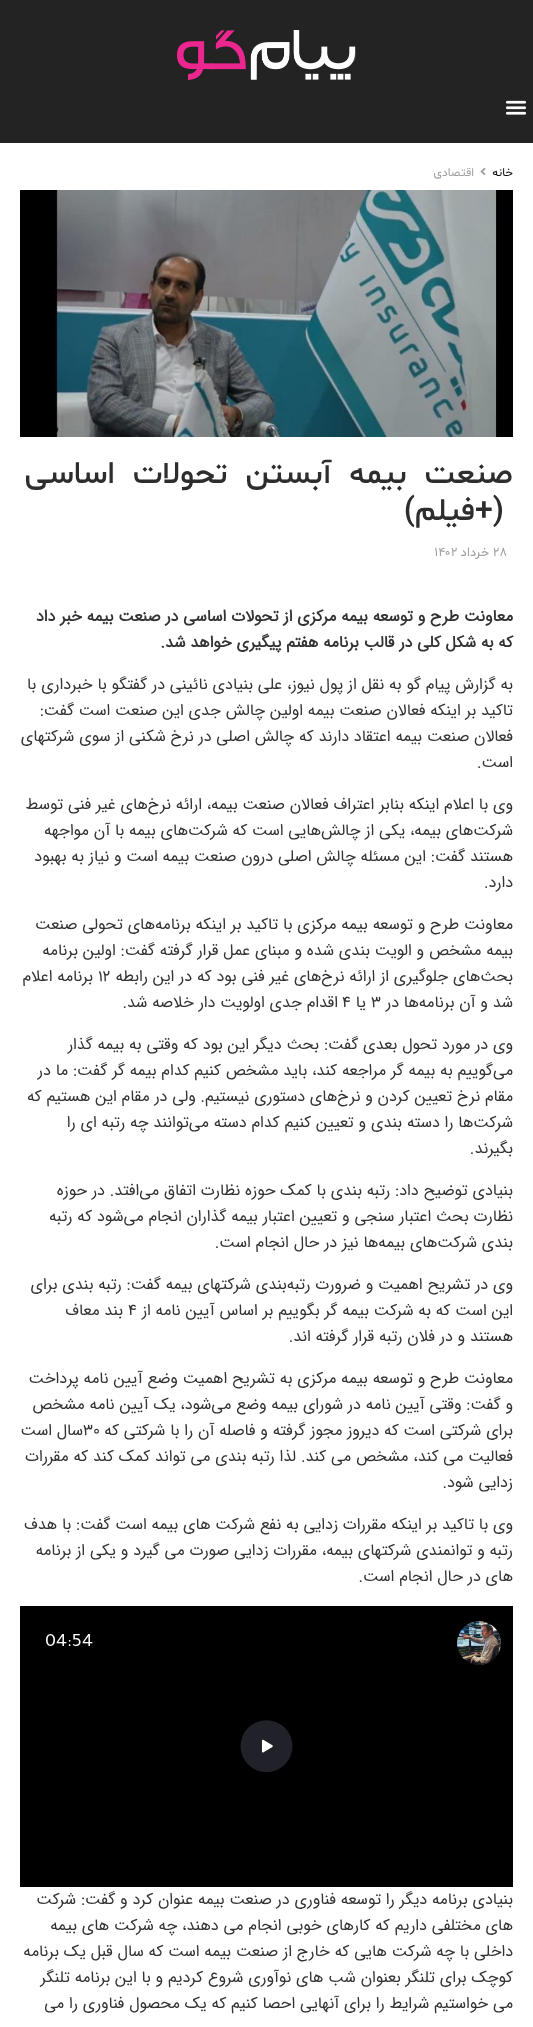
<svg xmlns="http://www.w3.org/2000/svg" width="533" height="2027">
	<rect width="100%" height="100%" fill="#FFFFFF" />
	<rect x="0" y="0" width="533" height="143" fill="#232323" />
	<image x="177" y="30" width="179" height="50" href="assets/img1.png" />
	<image x="505" y="100" width="22" height="15" href="assets/img2.png" />
	<text x="513" y="176" font-family="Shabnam" font-size="12" direction="rtl" fill="#0A0606">خانه</text>
	<image x="480" y="167" width="6" height="9" href="assets/img3.png" />
	<text x="474" y="176" font-family="Shabnam" font-size="12" direction="rtl" fill="#A0A0A0">اقتصادی</text>
	<image x="20" y="190" width="493" height="247" href="assets/img4.png" />
	<g font-family="Shabnam" font-size="32" font-weight="500" letter-spacing="-1.25" direction="rtl" fill="#2D2D2D">
		<text x="513" y="483" word-spacing="9.5">صنعت بیمه آبستن تحولات اساسی</text>
		<text x="504" y="520">(+فیلم)</text>
	</g>
	<text x="493" y="556" font-family="Shabnam" font-size="13" fill="#A0A0A0">۲۸</text>
	<text x="489" y="556" font-family="Shabnam" font-size="13" direction="rtl" fill="#A0A0A0">خرداد</text>
	<text x="434" y="556" font-family="Shabnam" font-size="13" fill="#A0A0A0">۱۴۰۲</text>
	<g font-family="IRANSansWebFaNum" font-size="16" font-weight="700" direction="rtl" fill="#333333">
		<text x="513" y="621">معاونت طرح و توسعه بیمه مرکزی از تحولات اساسی در صنعت بیمه خبر داد</text>
		<text x="513" y="647">که به شکل کلی در قالب برنامه هفتم پیگیری خواهد شد.</text>
	</g>
	<g font-family="IRANSansWebFaNum" font-size="16" direction="rtl" fill="#333333">
		<text x="513" y="689">به گزارش پیام گو به نقل از پول نیوز، علی بنیادی نائینی در گفتگو با خبرداری با</text>
		<text x="513" y="715">تاکید بر اینکه فعالان صنعت بیمه اولین چالش جدی این صنعت است گفت:</text>
		<text x="513" y="741">فعالان صنعت بیمه اعتقاد دارند که چالش اصلی در نرخ شکنی از سوی شرکتهای</text>
		<text x="513" y="767">است.</text>
		<text x="513" y="809">وی با اعلام اینکه بنابر اعتراف فعالان صنعت بیمه، ارائه نرخ‌های غیر فنی توسط</text>
		<text x="513" y="835">شرکت‌های بیمه، یکی از چالش‌هایی است که شرکت‌های بیمه با آن مواجهه</text>
		<text x="513" y="861">هستند گفت: این مسئله چالش اصلی درون صنعت بیمه است و نیاز به بهبود</text>
		<text x="513" y="887">دارد.</text>
		<text x="513" y="929">معاونت طرح و توسعه بیمه مرکزی با تاکید بر اینکه برنامه‌های تحولی صنعت</text>
		<text x="513" y="955">بیمه مشخص و الویت بندی شده و مبنای عمل قرار گرفته گفت: اولین برنامه</text>
		<text x="513" y="981">بحث‌های جلوگیری از ارائه نرخ‌های غیر فنی بود که در این رابطه</text>
	</g>
	<text x="98" y="981" font-family="IRANSansWebFaNum" font-size="16" fill="#333333">۱۲</text>
	<g font-family="IRANSansWebFaNum" font-size="16" direction="rtl" fill="#333333">
		<text x="93" y="981">برنامه اعلام</text>
		<text x="513" y="1007">شد و آن برنامه‌ها در</text>
	</g>
	<text x="371" y="1007" font-family="IRANSansWebFaNum" font-size="16" fill="#333333">۳</text>
	<text x="366" y="1007" font-family="IRANSansWebFaNum" font-size="16" direction="rtl" fill="#333333">یا</text>
	<text x="342" y="1007" font-family="IRANSansWebFaNum" font-size="16" fill="#333333">۴</text>
	<g font-family="IRANSansWebFaNum" font-size="16" direction="rtl" fill="#333333">
		<text x="338" y="1007">اقدام جدی اولویت دار خلاصه شد.</text>
		<text x="513" y="1049">وی در مورد تحول بعدی گفت: بحث‌ دیگر این بود که وقتی به بیمه گذار</text>
		<text x="513" y="1075">می‌گوییم به بیمه گر مراجعه کند، باید مشخص کنیم کدام بیمه گر گفت: ما در</text>
		<text x="513" y="1101">مقام نرخ تعیین کردن و نرخ‌های دستوری نیستیم. ولی در مقام این هستیم که</text>
		<text x="513" y="1127">شرکت‌ها را دسته بندی و تعیین کنیم کدام دسته می‌توانند چه رتبه ای را</text>
		<text x="513" y="1153">بگیرند.</text>
		<text x="513" y="1195">بنیادی توضیح داد: رتبه بندی با کمک حوزه نظارت اتفاق می‌افتد. در حوزه</text>
		<text x="513" y="1221">نظارت بحث اعتبار سنجی و تعیین اعتبار بیمه گذاران انجام می‌شود که رتبه</text>
		<text x="513" y="1247">بندی شرکت‌های بیمه‌ها نیز در حال انجام است.</text>
		<text x="513" y="1289">وی در تشریح اهمیت و ضرورت رتبه‌بندی شرکتهای بیمه گفت: رتبه بندی برای</text>
		<text x="513" y="1315">این است که به شرکت بیمه گر بگوییم بر اساس آیین نامه از</text>
	</g>
	<text x="128" y="1315" font-family="IRANSansWebFaNum" font-size="16" fill="#333333">۴</text>
	<g font-family="IRANSansWebFaNum" font-size="16" direction="rtl" fill="#333333">
		<text x="123" y="1315">بند معاف</text>
		<text x="513" y="1341">هستند و در فلان رتبه قرار گرفته اند.</text>
		<text x="513" y="1383">معاونت طرح و توسعه بیمه مرکزی به تشریح اهمیت وضع آیین نامه پرداخت</text>
		<text x="513" y="1409">و گفت: وقتی آیین نامه در شورای بیمه وضع می‌شود، یک آیین نامه مشخص</text>
		<text x="513" y="1435">برای شرکتی است که دیروز مجوز گرفته و فاصله آن را با شرکتی که</text>
	</g>
	<text x="83" y="1435" font-family="IRANSansWebFaNum" font-size="16" fill="#333333">۳۰</text>
	<g font-family="IRANSansWebFaNum" font-size="16" direction="rtl" fill="#333333">
		<text x="83" y="1435">سال است</text>
		<text x="513" y="1461">فعالیت می کند، مشخص می کند. لذا رتبه بندی می تواند کمک کند که مقررات</text>
		<text x="513" y="1487">زدایی شود.</text>
		<text x="513" y="1529">وی با تاکید بر اینکه مقررات زدایی به نفع شرکت های بیمه است گفت: با هدف</text>
		<text x="513" y="1555">رتبه و توانمندی شرکتهای بیمه، مقررات زدایی صورت می گیرد و یکی از برنامه</text>
		<text x="513" y="1581">های در حال انجام است.</text>
	</g>
	<image x="20" y="1606" width="493" height="281" href="assets/img5.png" />
	<g font-family="IRANSansWebFaNum" font-size="16" direction="rtl" fill="#333333">
		<text x="513" y="1904">بنیادی برنامه دیگر را توسعه فناوری در صنعت بیمه عنوان کرد و گفت: شرکت</text>
		<text x="513" y="1930">های مختلفی داریم که کارهای خوبی انجام می دهند، چه شرکت های بیمه</text>
		<text x="513" y="1956">داخلی با چه شرکت هایی که خارج از صنعت بیمه است که سال قبل یک برنامه</text>
		<text x="513" y="1982">کوچک برای تلنگر بعنوان شب های نوآوری شروع کردیم و با این برنامه تلنگر</text>
		<text x="513" y="2008">می خواستیم شرایط را برای آنهایی احصا کنیم که یک محصول فناوری را می</text>
	</g>
</svg>
